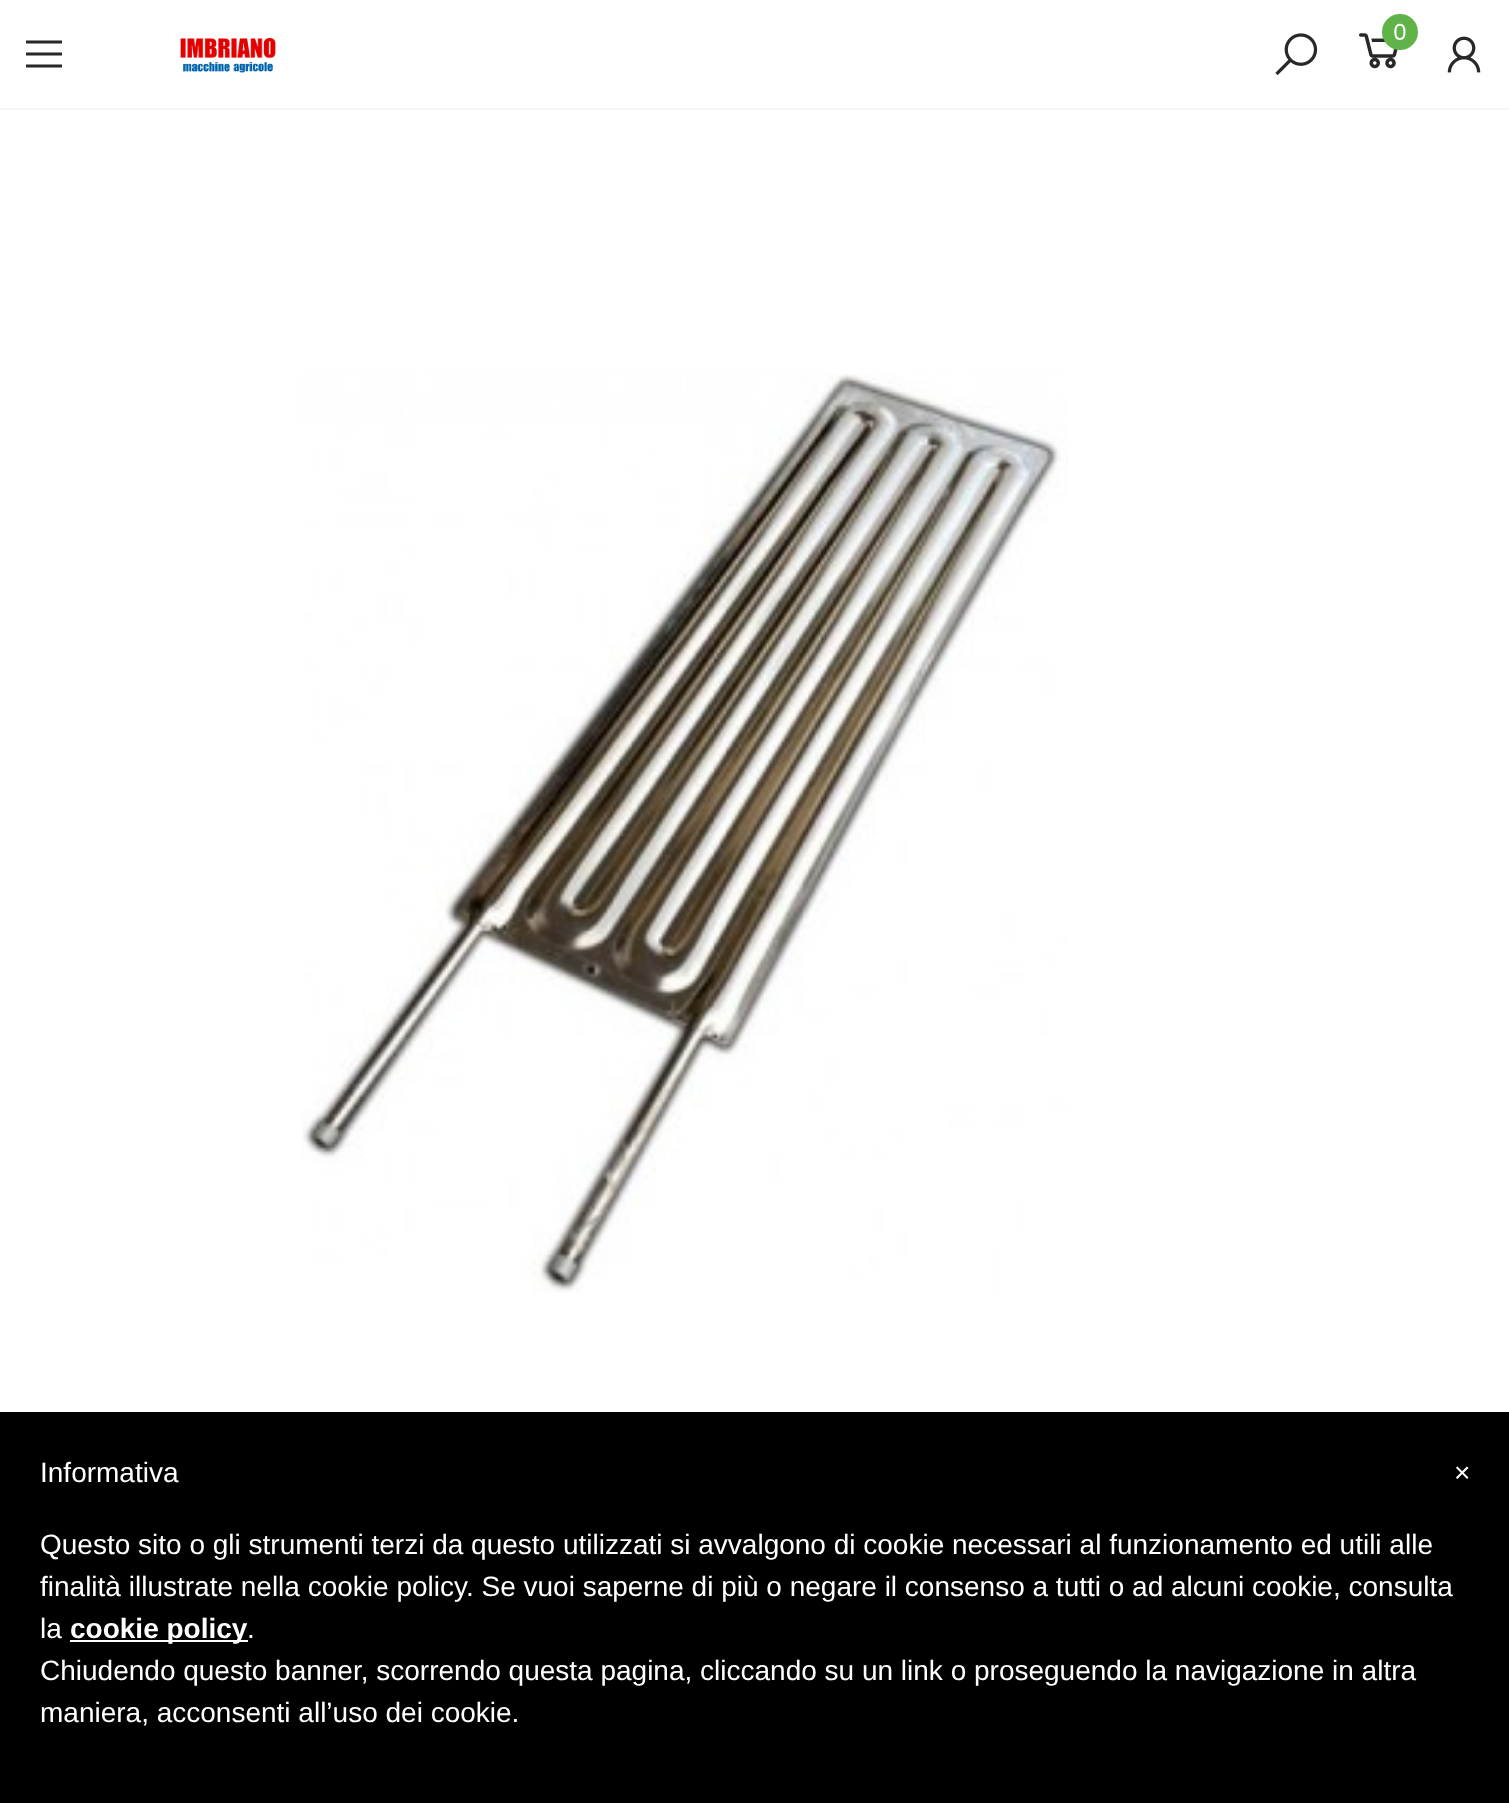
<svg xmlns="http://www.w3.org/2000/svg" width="1509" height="1803">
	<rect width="100%" height="100%" fill="#FFFFFF" />
	<rect x="0" y="108" width="1509" height="2" fill="#F5F5F5" />
	<image x="1275" y="33" width="43" height="43" href="assets/img1.png" />
	<image x="1359" y="33" width="39" height="36" href="assets/img2.png" />
	<circle cx="1400" cy="32" r="18" fill="#60B348" />
	<text x="1393" y="40" font-family="Poppins" font-size="22" fill="#FFFFFF">0</text>
	<image x="1447" y="36" width="34" height="37" href="assets/img3.png" />
	<path d="M26 40.5V43.5H62V40.5ZM26 52.5V55.5H62V52.5ZM26 64.5V67.5H62V64.5Z" fill="#282828" />
	<image x="180" y="38" width="96" height="35" href="assets/img4.png" />
	<image x="302" y="374" width="766" height="919" href="assets/img5.png" />
	<rect x="0" y="1412" width="1509" height="391" fill="#000000" />
	<g font-family="Liberation Sans" font-size="28" fill="#FFFFFF">
		<text x="40" y="1482">Informativa</text>
		<text x="40" y="1554">Questo sito o gli strumenti terzi da questo utilizzati si avvalgono di cookie necessari al funzionamento ed utili alle</text>
		<text x="40" y="1596">finalità illustrate nella cookie policy. Se vuoi saperne di più o negare il consenso a tutti o ad alcuni cookie, consulta</text>
		<text x="40" y="1638">la</text>
	</g>
	<rect x="70" y="1640" width="178" height="2" fill="#FFFFFF" />
	<text x="70" y="1638" font-family="Liberation Sans" font-size="28" font-weight="700" fill="#FFFFFF">cookie policy</text>
	<g font-family="Liberation Sans" font-size="28" fill="#FFFFFF">
		<text x="247" y="1638">.</text>
		<text x="40" y="1680">Chiudendo questo banner, scorrendo questa pagina, cliccando su un link o proseguendo la navigazione in altra</text>
		<text x="40" y="1722">maniera, acconsenti all’uso dei cookie.</text>
		<text x="1454" y="1482">×</text>
	</g>
</svg>
